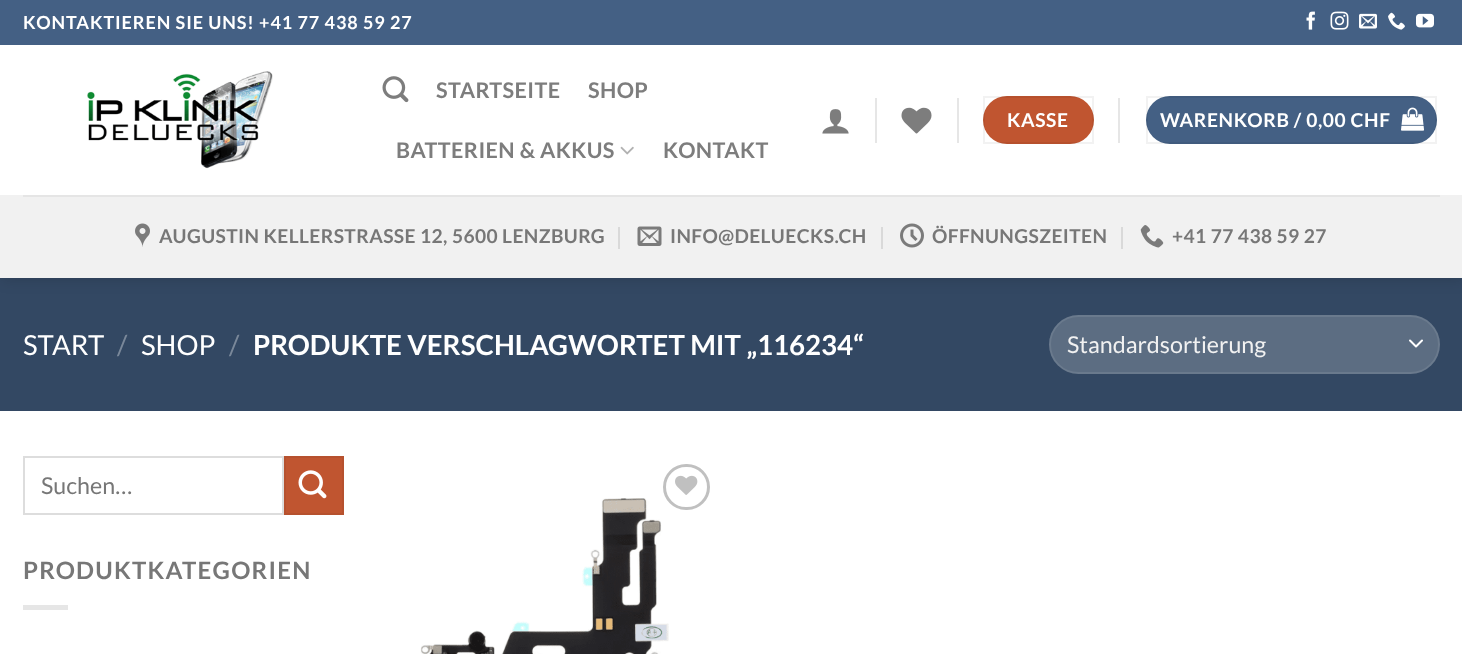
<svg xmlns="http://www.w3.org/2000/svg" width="1462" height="654">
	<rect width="100%" height="100%" fill="#FFFFFF" />
	<rect x="0" y="278" width="1462" height="133" fill="#334863" />
	<rect x="2" y="2" width="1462" height="277" fill="#000000" fill-opacity="0.15" filter="blur(7.5px)" />
	<rect x="0" y="0" width="1462" height="45" fill="#446084" />
	<text x="23" y="29" font-family="Lato" font-size="18" font-weight="700" letter-spacing="0.9" fill="#FFFFFF">KONTAKTIEREN SIE UNS! +41 77 438 59 27</text>
	<image x="1306" y="11" width="9" height="19" href="assets/img1.png" />
	<image x="1330" y="11" width="19" height="19" href="assets/img2.png" />
	<image x="1359" y="13" width="18" height="16" href="assets/img3.png" />
	<image x="1388" y="12" width="17" height="18" href="assets/img4.png" />
	<image x="1416" y="13" width="18" height="15" href="assets/img5.png" />
	<rect x="0" y="45" width="1462" height="150" fill="#FFFFFF" />
	<image x="87" y="71" width="186" height="98" href="assets/img6.png" />
	<image x="382" y="76" width="27" height="27" href="assets/img7.png" />
	<g font-family="Lato" font-size="21.6" font-weight="700" letter-spacing="0.4" fill="#7D7D7D">
		<text x="436" y="98">STARTSEITE</text>
		<text x="588" y="98">SHOP</text>
		<text x="396" y="158">BATTERIEN &amp; AKKUS</text>
	</g>
	<image x="620" y="146" width="14" height="9" href="assets/img8.png" />
	<text x="663" y="158" font-family="Lato" font-size="21.6" font-weight="700" letter-spacing="0.4" fill="#7D7D7D">KONTAKT</text>
	<image x="822" y="109" width="27" height="25" href="assets/img9.png" />
	<rect x="875" y="98" width="2" height="45" fill="#E6E6E6" />
	<image x="901" y="107" width="31" height="27" href="assets/img10.png" />
	<rect x="957" y="98" width="2" height="45" fill="#E6E6E6" />
	<rect x="983" y="96" width="111" height="48" rx="24" fill="#C05530" />
	<rect x="984" y="97" width="109" height="46" fill="none" stroke="#000000" stroke-opacity="0.05" stroke-width="2" />
	<text x="1007" y="127" font-family="Lato" font-size="19.2" font-weight="700" letter-spacing="0.6" fill="#FFFFFF">KASSE</text>
	<rect x="1118" y="98" width="2" height="45" fill="#E6E6E6" />
	<rect x="1146" y="96" width="291" height="48" rx="24" fill="#446084" />
	<rect x="1147" y="97" width="289" height="46" fill="none" stroke="#000000" stroke-opacity="0.05" stroke-width="2" />
	<text x="1160" y="127" font-family="Lato" font-size="19.2" font-weight="700" letter-spacing="0.6" fill="#FFFFFF">WARENKORB / 0,00 CHF</text>
	<image x="1401" y="107" width="23" height="24" href="assets/img11.png" />
	<rect x="0" y="195" width="1462" height="83" fill="#F1F1F1" />
	<rect x="23" y="195" width="1417" height="2" fill="#E5E5E5" />
	<image x="135" y="223" width="15" height="24" href="assets/img12.png" />
	<text x="159" y="243" font-family="Lato" font-size="19.2" font-weight="700" letter-spacing="0.4" fill="#777777">AUGUSTIN KELLERSTRASSE 12, 5600 LENZBURG</text>
	<rect x="618" y="227" width="2" height="22" fill="#D9D9D9" />
	<image x="637" y="226" width="25" height="20" href="assets/img13.png" />
	<text x="670" y="243" font-family="Lato" font-size="19.2" font-weight="700" letter-spacing="0.4" fill="#777777">INFO@DELUECKS.CH</text>
	<rect x="881" y="227" width="2" height="22" fill="#D9D9D9" />
	<image x="900" y="223" width="24" height="25" href="assets/img14.png" />
	<text x="932" y="243" font-family="Lato" font-size="19.2" font-weight="700" letter-spacing="0.4" fill="#777777">ÖFFNUNGSZEITEN</text>
	<rect x="1121" y="227" width="2" height="22" fill="#D9D9D9" />
	<image x="1140" y="225" width="24" height="23" href="assets/img15.png" />
	<text x="1172" y="243" font-family="Lato" font-size="19.2" font-weight="700" letter-spacing="0.4" fill="#777777">+41 77 438 59 27</text>
	<text x="23" y="355" font-family="Lato" font-size="27.6" fill="#FFFFFF">START</text>
	<text x="117" y="355" font-family="Lato" font-size="27.6" fill="#7A889A">/</text>
	<text x="141" y="355" font-family="Lato" font-size="27.6" fill="#FFFFFF">SHOP</text>
	<text x="229" y="355" font-family="Lato" font-size="27.6" fill="#7A889A">/</text>
	<text x="253" y="355" font-family="Lato" font-size="27.6" font-weight="700" fill="#FFFFFF">PRODUKTE VERSCHLAGWORTET MIT „116234“</text>
	<rect x="1049" y="315" width="391" height="59" rx="29.5" fill="#5C6D82" />
	<path d="M1410 340.5L1416 346.5L1422 340.5" fill="none" stroke="#FFFFFF" stroke-width="2" stroke-linecap="round" stroke-linejoin="round" />
	<rect x="1050" y="316" width="389" height="57" rx="28.5" fill="none" stroke="#FFFFFF" stroke-opacity="0.09" stroke-width="2" />
	<text x="1067" y="353" font-family="Lato" font-size="23.25" fill="#F1F1F1">Standardsortierung</text>
	<rect x="24" y="457" width="259" height="57" fill="none" stroke="#DDDDDD" stroke-width="2" />
	<text x="41" y="494" font-family="Lato" font-size="23.25" fill="#777777">Suchen…</text>
	<rect x="285" y="457" width="58" height="57" fill="#C05530" stroke="#B6512E" stroke-width="2" />
	<image x="298" y="470" width="29" height="29" href="assets/img16.png" />
	<text x="23" y="579" font-family="Lato" font-size="24" font-weight="700" letter-spacing="1.25" fill="#777777">PRODUKTKATEGORIEN</text>
	<rect x="23" y="605" width="45" height="5" fill="#E6E6E6" />
	<image x="420" y="498" width="249" height="156" href="assets/img18.png" />
	<rect x="664.5" y="465.5" width="44" height="43" rx="21.5" fill="none" stroke="#C0C0C0" stroke-width="3" />
	<image x="675" y="475" width="23" height="20" href="assets/img17.png" />
</svg>
